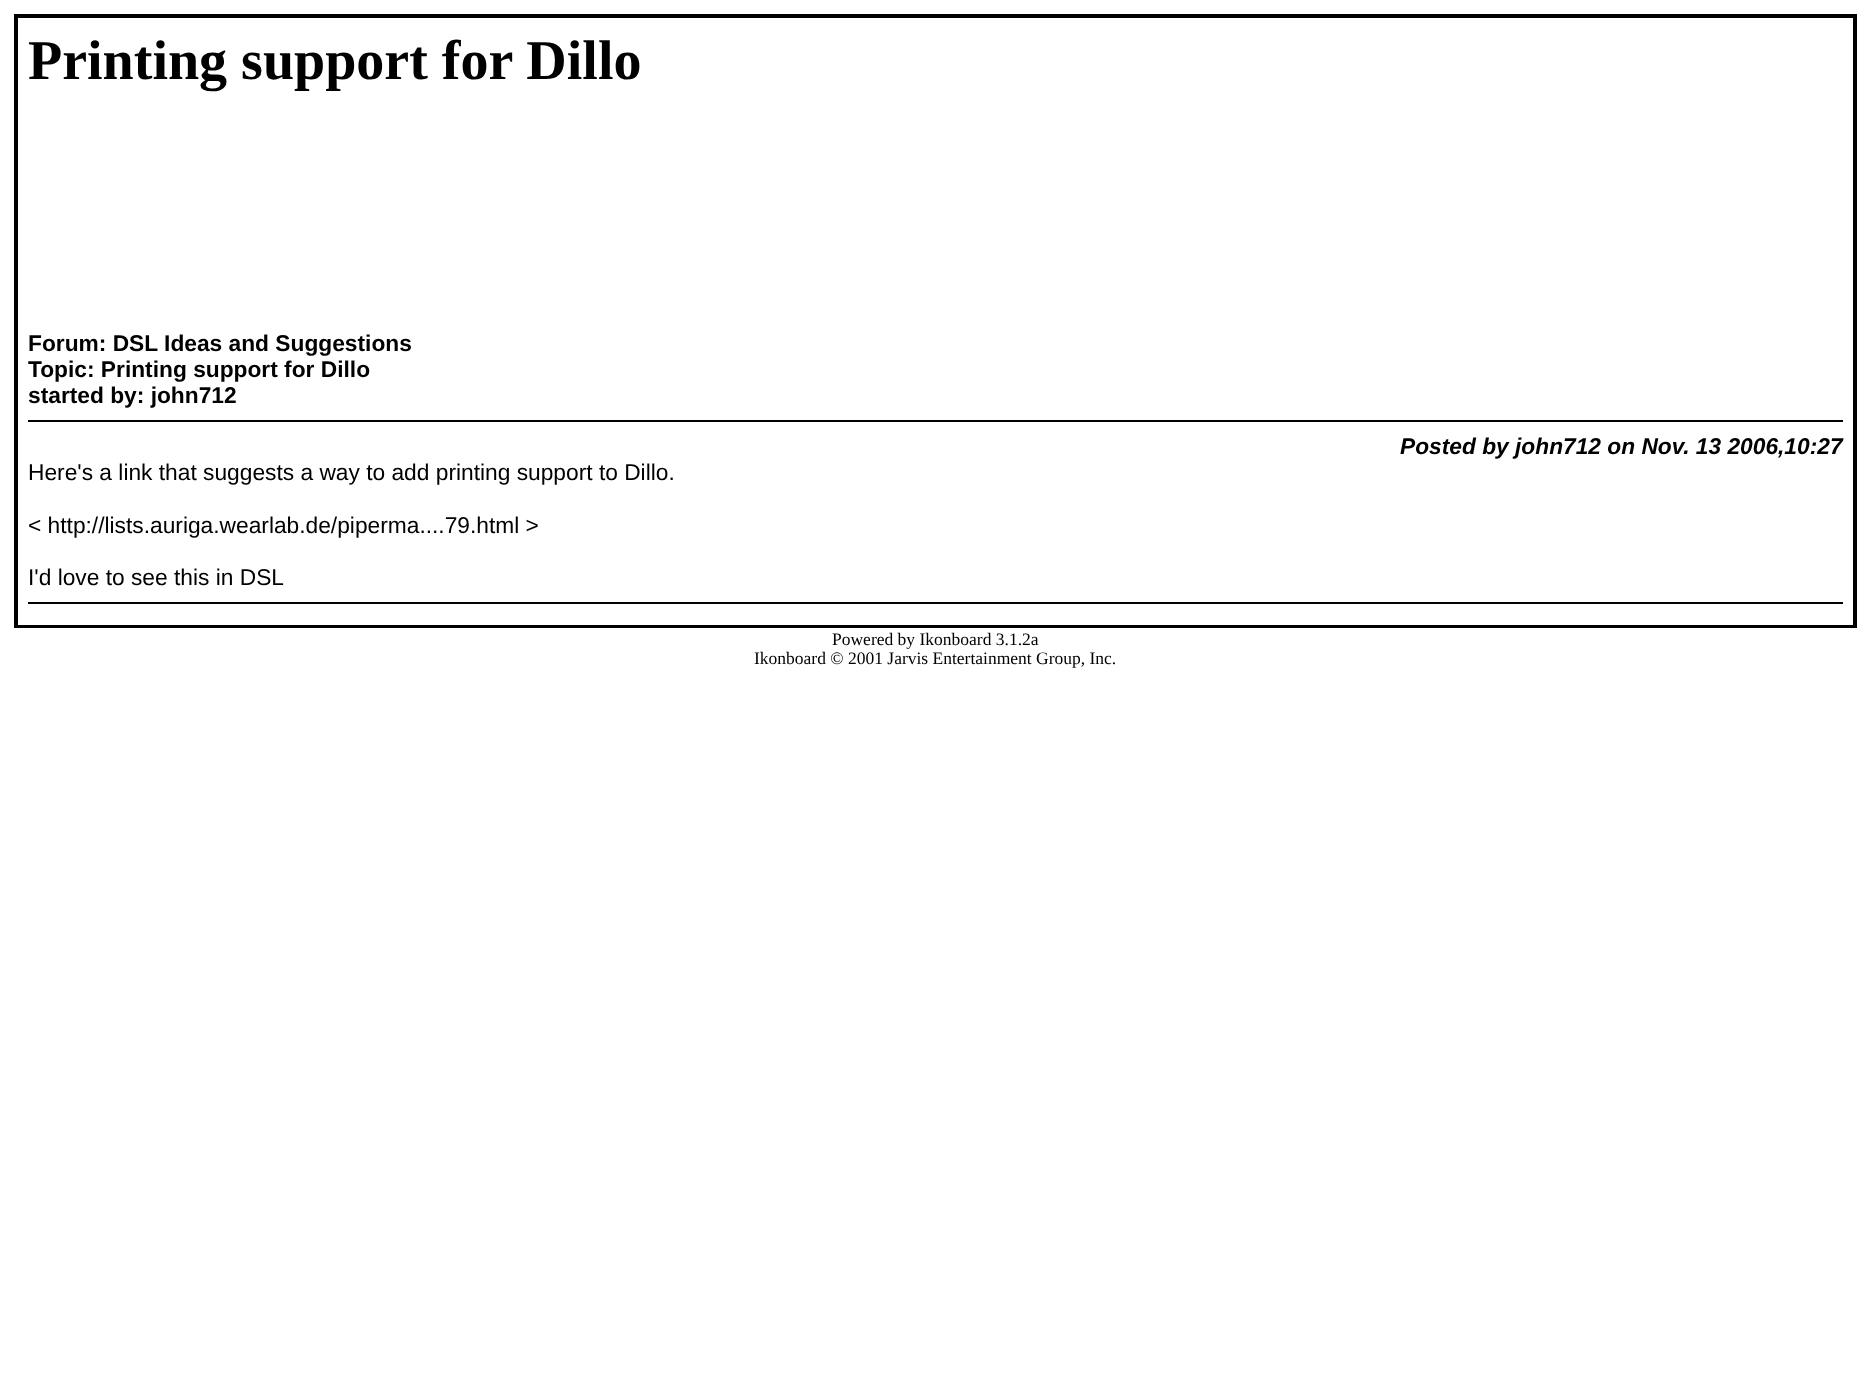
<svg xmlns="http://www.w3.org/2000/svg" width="1870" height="1383">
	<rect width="100%" height="100%" fill="#FFFFFF" />
	<rect x="15" y="15" width="1841" height="612" fill="none" stroke="#000000" stroke-width="2" />
	<rect x="17" y="17" width="1837" height="609" fill="none" stroke="#000000" stroke-width="2" />
	<text x="28" y="79" font-family="Liberation Serif" font-size="56" font-weight="700" fill="#000000">Printing support for Dillo</text>
	<g font-family="Liberation Sans" font-size="22.75" font-weight="700" fill="#000000">
		<text x="28" y="351">Forum: DSL Ideas and Suggestions</text>
		<text x="28" y="377">Topic: Printing support for Dillo</text>
		<text x="28" y="403">started by: john712</text>
	</g>
	<rect x="28" y="420" width="1815" height="2" fill="#000000" />
	<text x="1400" y="454" font-family="Liberation Sans" font-size="22.75" font-weight="700" font-style="italic" fill="#000000">Posted by john712 on Nov. 13 2006,10:27</text>
	<g font-family="Liberation Sans" font-size="22.75" fill="#000000">
		<text x="28" y="480">Here's a link that suggests a way to add printing support to Dillo.</text>
		<text x="28" y="533">&lt; http://lists.auriga.wearlab.de/piperma....79.html &gt;</text>
		<text x="28" y="585">I'd love to see this in DSL</text>
	</g>
	<rect x="28" y="602" width="1815" height="2" fill="#000000" />
	<g font-family="Liberation Serif" font-size="17.5" fill="#000000">
		<text x="832" y="645">Powered by Ikonboard 3.1.2a</text>
		<text x="754" y="664">Ikonboard © 2001 Jarvis Entertainment Group, Inc.</text>
	</g>
</svg>
